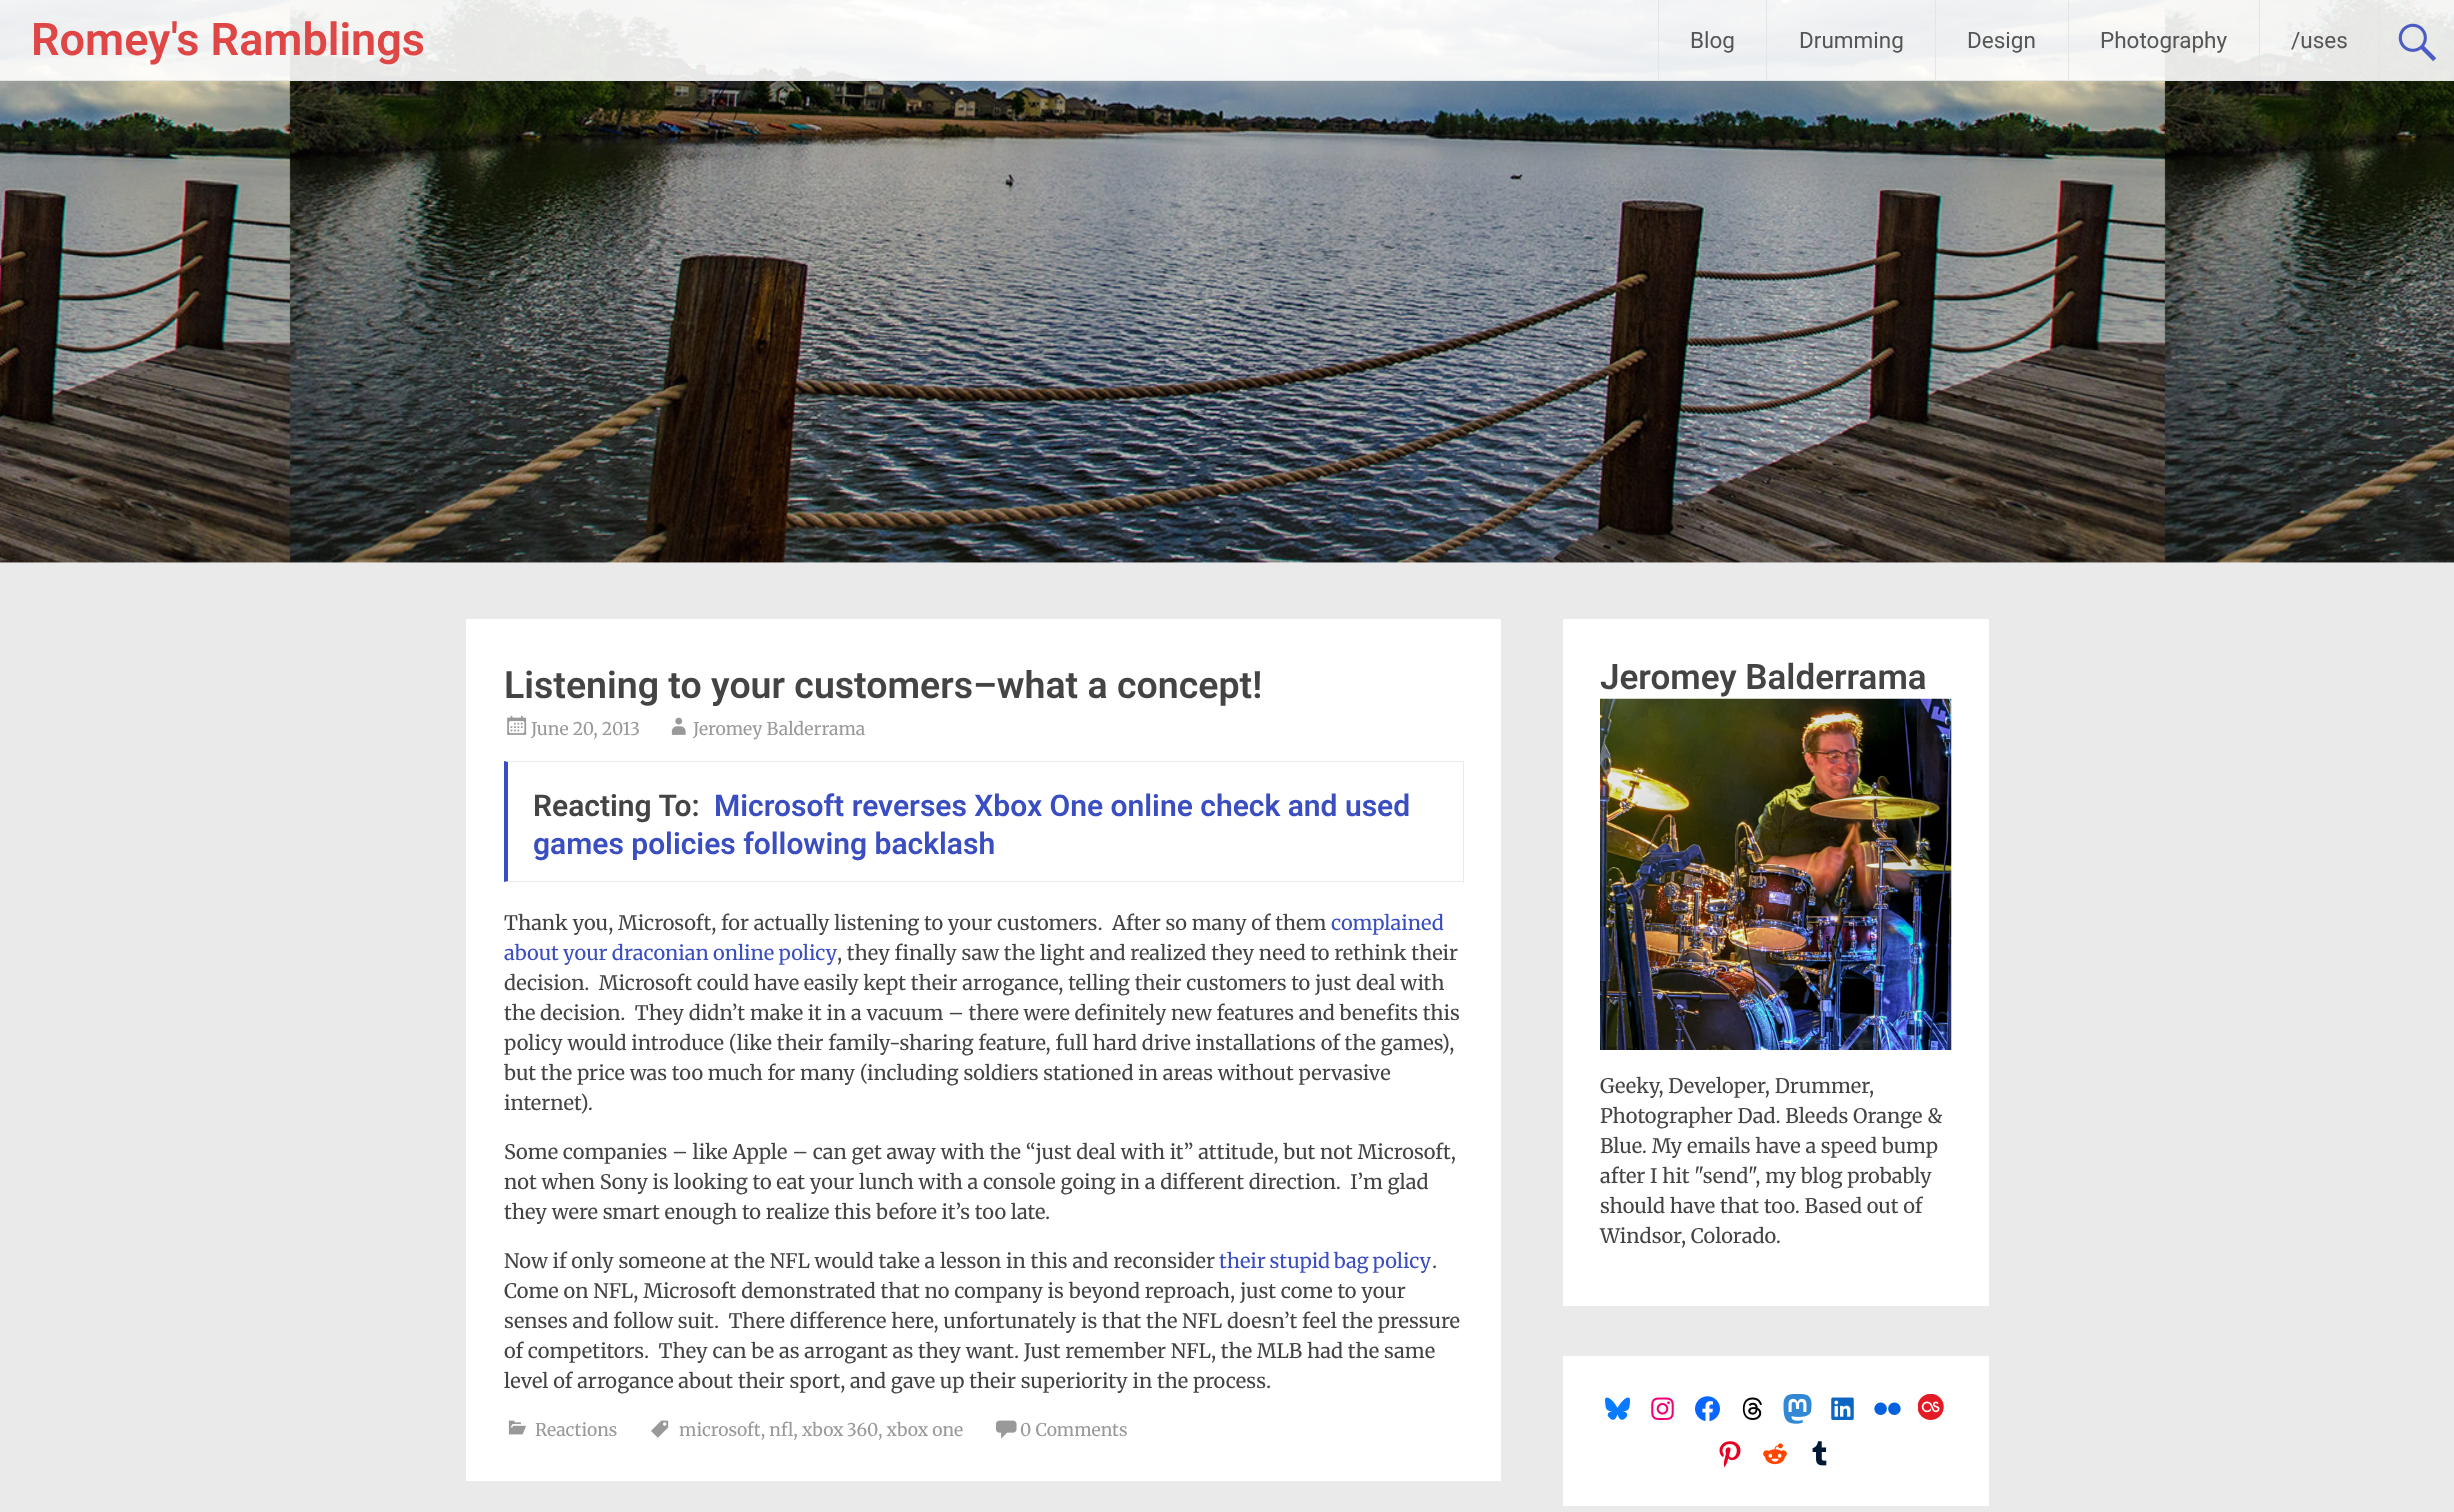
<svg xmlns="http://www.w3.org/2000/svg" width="2454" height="1512">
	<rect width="100%" height="100%" fill="#FFFFFF" />
	<image x="0" y="0" width="2454" height="563" href="assets/img1.png" />
	<rect x="0" y="0" width="2454" height="81" fill="#FFFFFF" fill-opacity="0.9" />
	<rect x="0" y="80" width="2454" height="1" fill="#E1E4E6" fill-opacity="0.9" />
	<text x="31" y="55" font-family="Roboto" font-size="45" font-weight="600" fill="#DF4646">Romey's Ramblings</text>
	<rect x="1658" y="0" width="1" height="80" fill="#E1E4E6" fill-opacity="0.9" />
	<text x="1690" y="48" font-family="Roboto" font-size="22.5" fill="#555555">Blog</text>
	<rect x="1766" y="0" width="1" height="80" fill="#E1E4E6" fill-opacity="0.9" />
	<text x="1799" y="48" font-family="Roboto" font-size="22.5" fill="#555555">Drumming</text>
	<rect x="1935" y="0" width="1" height="80" fill="#E1E4E6" fill-opacity="0.9" />
	<text x="1967" y="48" font-family="Roboto" font-size="22.5" fill="#555555">Design</text>
	<rect x="2068" y="0" width="1" height="80" fill="#E1E4E6" fill-opacity="0.9" />
	<text x="2100" y="48" font-family="Roboto" font-size="22.5" fill="#555555">Photography</text>
	<rect x="2259" y="0" width="1" height="80" fill="#E1E4E6" fill-opacity="0.9" />
	<text x="2291" y="48" font-family="Roboto" font-size="22.5" fill="#555555">/uses</text>
	<rect x="2379" y="0" width="1" height="80" fill="#E1E4E6" fill-opacity="0.9" />
	<image x="2398" y="23" width="39" height="39" href="assets/img2.png" />
	<rect x="0" y="563" width="2454" height="949" fill="#EAEAEA" />
	<rect x="466" y="619" width="1035" height="862" fill="#FFFFFF" />
	<text x="504" y="698" font-family="Roboto" font-size="37.5" font-weight="600" fill="#444444">Listening to your customers–what a concept!</text>
	<image x="507" y="715" width="20" height="20" href="assets/img3.png" />
	<text x="531" y="735" font-family="Merriweather" font-size="17.5" fill="#999999">June 20, 2013</text>
	<image x="671" y="717" width="15" height="18" href="assets/img4.png" />
	<text x="693" y="735" font-family="Merriweather" font-size="17.5" fill="#999999">Jeromey Balderrama</text>
	<path d="M504 761H1464L1462 762H508Z" fill="#EAEAEA" />
	<rect x="1463" y="761" width="1" height="122" fill="#EAEAEA" />
	<path d="M1464 882H504L508 881H1462Z" fill="#EAEAEA" />
	<path d="M504 882V761L508 762V881Z" fill="#3A4EC1" />
	<text x="533" y="816" font-family="Roboto" font-size="30" font-weight="600" fill="#444444">Reacting To:</text>
	<g font-family="Roboto" font-size="30" font-weight="600" fill="#3A4EC1">
		<text x="714" y="816">Microsoft reverses Xbox One online check and used</text>
		<text x="533" y="854">games policies following backlash</text>
	</g>
	<text x="504" y="930" font-family="Merriweather" font-size="20" fill="#444444" xml:space="preserve">Thank you, Microsoft, for actually listening to your customers.  After so many of them</text>
	<g font-family="Merriweather" font-size="20" fill="#3A4EC1">
		<text x="1331" y="930">complained</text>
		<text x="504" y="960" word-spacing="-0.5">about your draconian online policy</text>
	</g>
	<g font-family="Merriweather" font-size="20" fill="#444444">
		<text x="837" y="960">, they finally saw the light and realized they need to rethink their</text>
		<text x="504" y="990" xml:space="preserve">decision.  Microsoft could have easily kept their arrogance, telling their customers to just deal with</text>
		<text x="504" y="1020" xml:space="preserve">the decision.  They didn’t make it in a vacuum – there were definitely new features and benefits this</text>
		<text x="504" y="1050">policy would introduce (like their family-sharing feature, full hard drive installations of the games),</text>
		<text x="504" y="1080">but the price was too much for many (including soldiers stationed in areas without pervasive</text>
		<text x="504" y="1110">internet).</text>
		<text x="504" y="1159">Some companies – like Apple – can get away with the “just deal with it” attitude, but not Microsoft,</text>
		<text x="504" y="1189" xml:space="preserve">not when Sony is looking to eat your lunch with a console going in a different direction.  I’m glad</text>
		<text x="504" y="1219">they were smart enough to realize this before it’s too late.</text>
		<text x="504" y="1268">Now if only someone at the NFL would take a lesson in this and reconsider</text>
	</g>
	<text x="1219" y="1268" word-spacing="-1" font-family="Merriweather" font-size="20" fill="#3A4EC1">their stupid bag policy</text>
	<g font-family="Merriweather" font-size="20" fill="#444444">
		<text x="1432" y="1268">.</text>
		<text x="504" y="1298">Come on NFL, Microsoft demonstrated that no company is beyond reproach, just come to your</text>
		<text x="504" y="1328" xml:space="preserve">senses and follow suit.  There difference here, unfortunately is that the NFL doesn’t feel the pressure</text>
		<text x="504" y="1358" xml:space="preserve">of competitors.  They can be as arrogant as they want. Just remember NFL, the MLB had the same</text>
		<text x="504" y="1388">level of arrogance about their sport, and gave up their superiority in the process.</text>
	</g>
	<image x="508" y="1420" width="18" height="15" href="assets/img5.png" />
	<text x="535" y="1436" font-family="Merriweather" font-size="17.5" fill="#999999">Reactions</text>
	<image x="651" y="1420" width="18" height="18" href="assets/img6.png" />
	<g font-family="Merriweather" font-size="17.5" fill="#999999">
		<text x="679" y="1436">microsoft, nfl,</text>
		<text x="802" y="1436" word-spacing="-1">xbox 360</text>
		<text x="878" y="1436">, xbox one</text>
	</g>
	<image x="995" y="1420" width="22" height="19" href="assets/img7.png" />
	<text x="1020" y="1436" font-family="Merriweather" font-size="17.5" fill="#999999">0 Comments</text>
	<rect x="1563" y="619" width="426" height="687" fill="#FFFFFF" />
	<text x="1600" y="689" font-family="Roboto" font-size="35" font-weight="600" fill="#444444">Jeromey Balderrama</text>
	<image x="1600" y="698" width="352" height="352" href="assets/img8.png" />
	<g font-family="Merriweather" font-size="20" fill="#444444">
		<text x="1600" y="1093">Geeky, Developer, Drummer,</text>
		<text x="1600" y="1123">Photographer Dad. Bleeds Orange &amp;</text>
		<text x="1600" y="1153">Blue. My emails have a speed bump</text>
		<text x="1600" y="1183">after I hit "send", my blog probably</text>
		<text x="1600" y="1213">should have that too. Based out of</text>
		<text x="1600" y="1243">Windsor, Colorado.</text>
	</g>
	<rect x="1563" y="1356" width="426" height="150" fill="#FFFFFF" />
	<image x="1605" y="1397" width="25" height="23" href="assets/img9.png" />
	<image x="1651" y="1397" width="23" height="23" href="assets/img10.png" />
	<image x="1695" y="1396" width="25" height="26" href="assets/img11.png" />
	<image x="1742" y="1397" width="20" height="23" href="assets/img12.png" />
	<image x="1783" y="1394" width="29" height="30" href="assets/img13.png" />
	<image x="1831" y="1397" width="23" height="23" href="assets/img14.png" />
	<image x="1874" y="1402" width="27" height="13" href="assets/img15.png" />
	<image x="1918" y="1394" width="26" height="26" href="assets/img16.png" />
	<image x="1719" y="1441" width="22" height="27" href="assets/img17.png" />
	<image x="1763" y="1443" width="24" height="22" href="assets/img18.png" />
	<image x="1812" y="1441" width="15" height="25" href="assets/img19.png" />
</svg>
